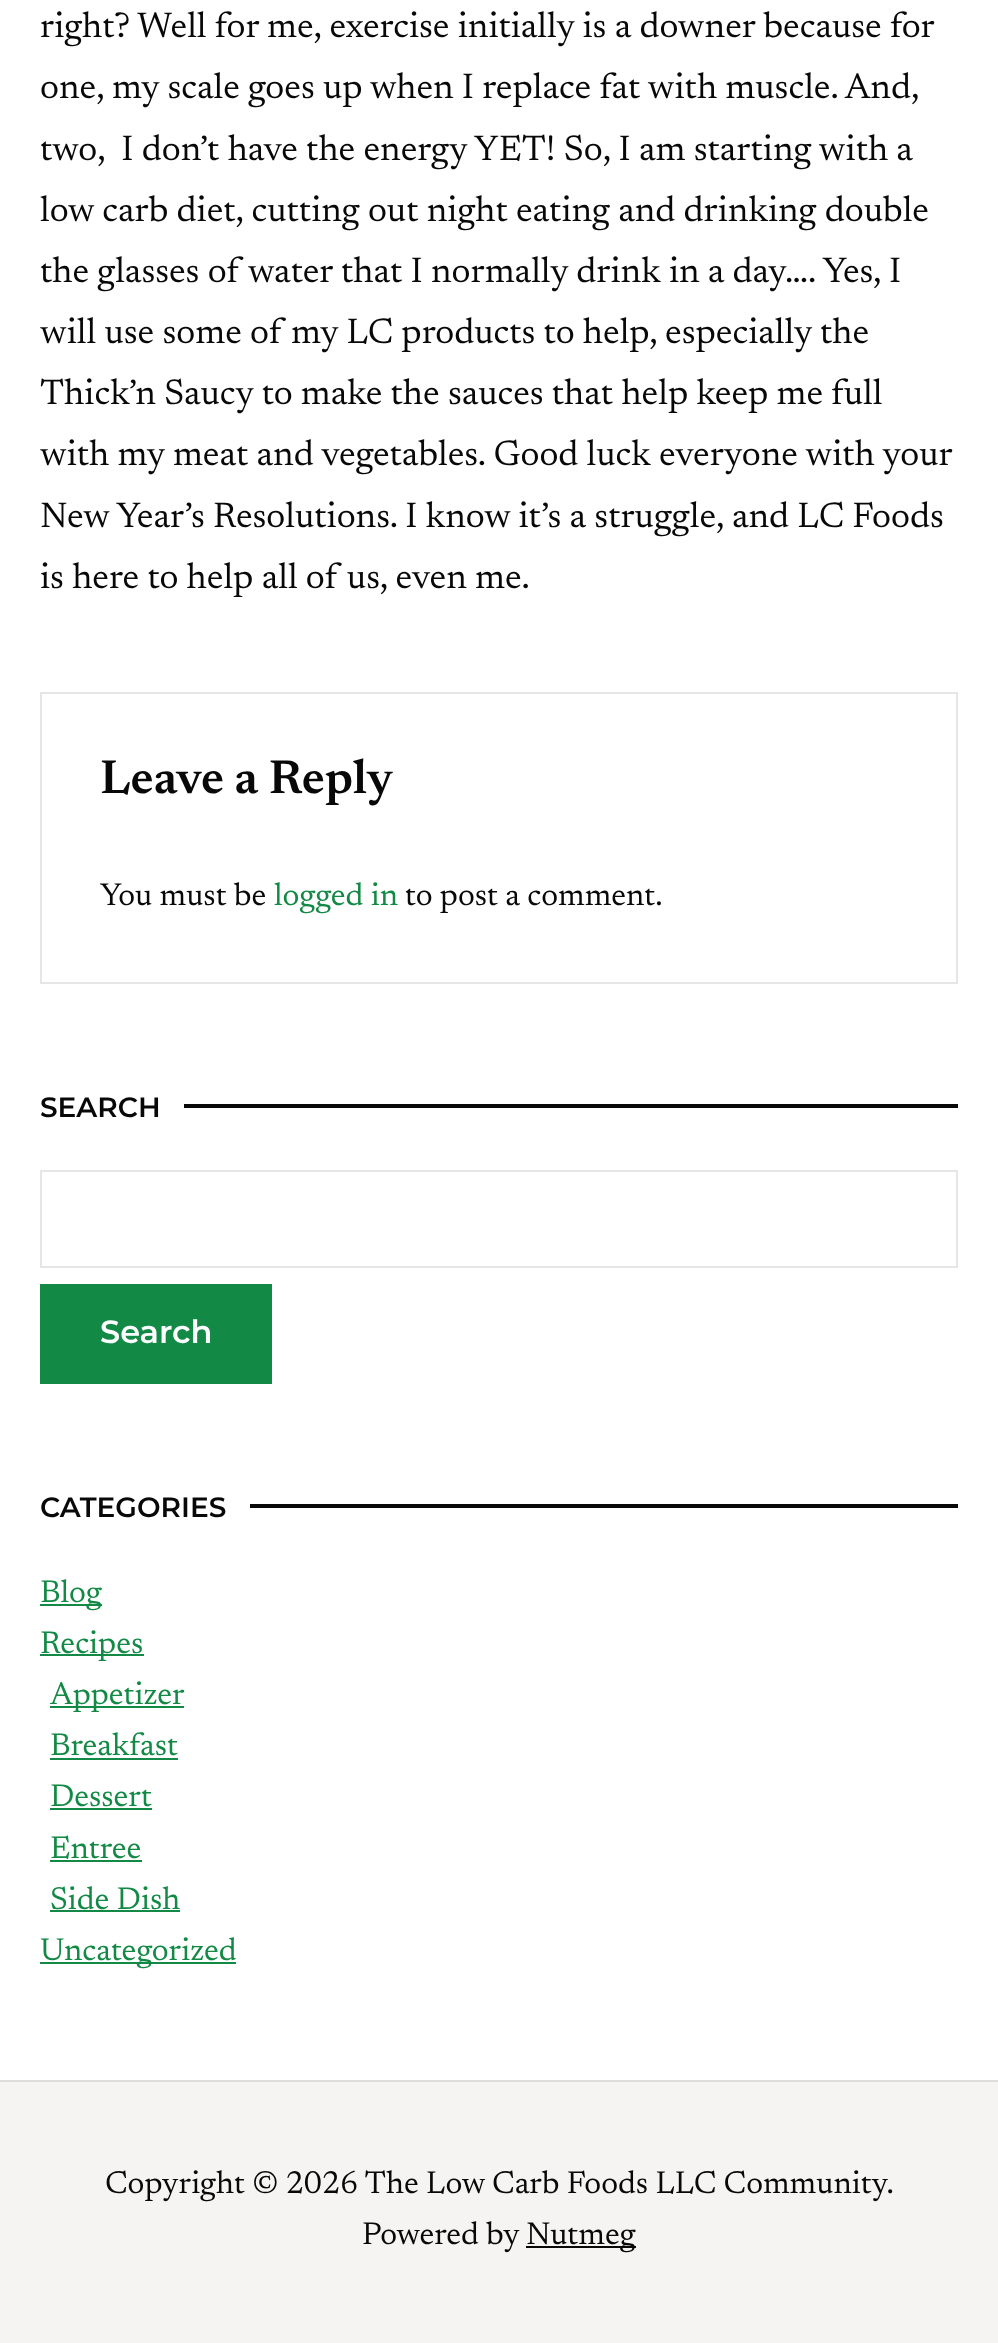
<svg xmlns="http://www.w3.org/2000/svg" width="998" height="2343">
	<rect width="100%" height="100%" fill="#FFFFFF" />
	<g font-family="Newsreader" font-size="36" fill="#080808">
		<text x="40" y="37">right? Well for me, exercise initially is a downer because for</text>
		<text x="40" y="98">one, my scale goes up when I replace fat with muscle. And,</text>
		<text x="40" y="160" xml:space="preserve">two,  I don’t have the energy YET! So, I am starting with a</text>
		<text x="40" y="221">low carb diet, cutting out night eating and drinking double</text>
		<text x="40" y="282">the glasses of water that I normally drink in a day…. Yes, I</text>
		<text x="40" y="343">will use some of my LC products to help, especially the</text>
		<text x="40" y="404">Thick’n Saucy to make the sauces that help keep me full</text>
		<text x="40" y="465">with my meat and vegetables. Good luck everyone with your</text>
		<text x="40" y="527">New Year’s Resolutions. I know it’s a struggle, and LC Foods</text>
		<text x="40" y="588">is here to help all of us, even me.</text>
	</g>
	<rect x="41" y="693" width="916" height="290" fill="none" stroke="#E6E6E6" stroke-width="2" />
	<text x="100" y="793" font-family="Newsreader" font-size="48" font-weight="600" fill="#080808">Leave a Reply</text>
	<text x="100" y="905" font-family="Newsreader" font-size="32" fill="#080808">You must be</text>
	<text x="274" y="905" font-family="Newsreader" font-size="32" fill="#128944">logged in</text>
	<text x="405" y="905" font-family="Newsreader" font-size="32" fill="#080808">to post a comment.</text>
	<text x="40" y="1117" font-family="Montserrat" font-size="28" font-weight="600" fill="#080808">SEARCH</text>
	<rect x="184" y="1104" width="774" height="4" fill="#080808" />
	<rect x="41" y="1171" width="916" height="96" fill="none" stroke="#E6E6E6" stroke-width="2" />
	<rect x="40" y="1284" width="232" height="100" fill="#128944" />
	<text x="100" y="1343" font-family="Montserrat" font-size="32" font-weight="600" fill="#FFFFFF">Search</text>
	<text x="40" y="1517" font-family="Montserrat" font-size="28" font-weight="600" fill="#080808">CATEGORIES</text>
	<rect x="250" y="1504" width="708" height="4" fill="#080808" />
	<rect x="40" y="1604" width="62" height="2" fill="#128944" />
	<text x="40" y="1602" font-family="Newsreader" font-size="32" fill="#128944">Blog</text>
	<rect x="40" y="1654" width="104" height="2" fill="#128944" />
	<text x="40" y="1653" font-family="Newsreader" font-size="32" fill="#128944">Recipes</text>
	<rect x="50" y="1706" width="134" height="2" fill="#128944" />
	<g font-family="Newsreader" font-size="32" fill="#128944">
		<text x="50" y="1704">Appetizer</text>
		<text x="50" y="1755">Breakfast</text>
	</g>
	<rect x="50" y="1758" width="128" height="2" fill="#128944" />
	<text x="50" y="1806" font-family="Newsreader" font-size="32" fill="#128944">Dessert</text>
	<rect x="50" y="1808" width="102" height="2" fill="#128944" />
	<text x="50" y="1858" font-family="Newsreader" font-size="32" fill="#128944">Entree</text>
	<rect x="50" y="1860" width="92" height="2" fill="#128944" />
	<text x="50" y="1909" font-family="Newsreader" font-size="32" fill="#128944">Side Dish</text>
	<rect x="50" y="1910" width="130" height="2" fill="#128944" />
	<rect x="40" y="1962" width="196" height="2" fill="#128944" />
	<text x="40" y="1960" font-family="Newsreader" font-size="32" fill="#128944">Uncategorized</text>
	<rect x="0" y="2082" width="998" height="261" fill="#F5F4F2" />
	<rect x="0" y="2080" width="998" height="2" fill="#DDDCDA" />
	<g font-family="Newsreader" font-size="32" fill="#080808">
		<text x="105" y="2193">Copyright © 2026 The Low Carb Foods LLC Community.</text>
		<text x="362" y="2244">Powered by</text>
	</g>
	<rect x="526" y="2246" width="110" height="2" fill="#080808" />
	<text x="526" y="2244" font-family="Newsreader" font-size="32" fill="#080808">Nutmeg</text>
</svg>
